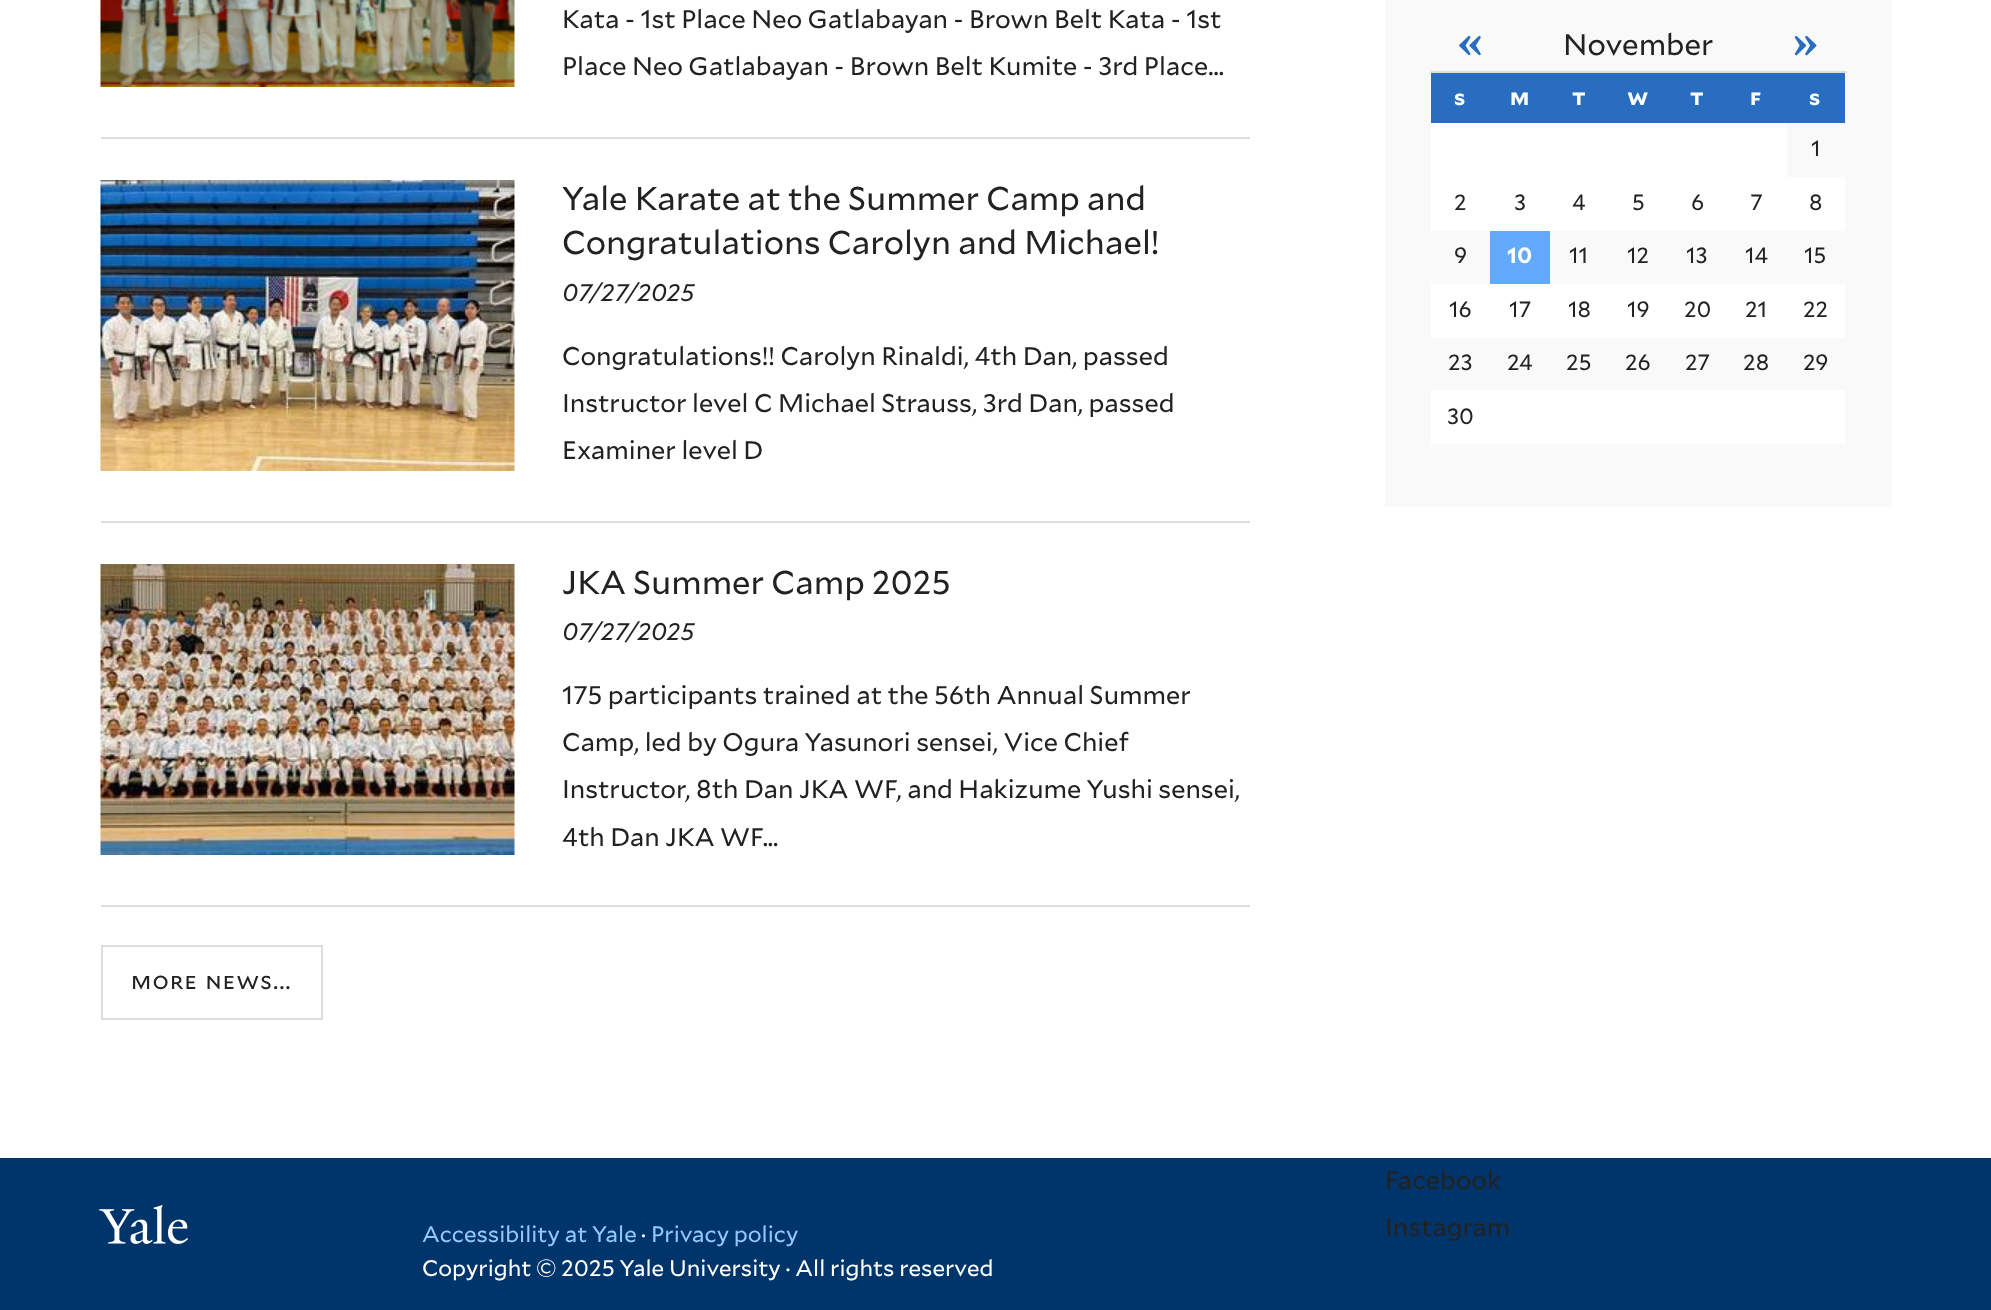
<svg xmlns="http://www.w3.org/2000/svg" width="1991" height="1310">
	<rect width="100%" height="100%" fill="#FFFFFF" />
	<rect x="101" y="137" width="1149" height="2" fill="#DDDDDD" />
	<image x="100" y="0" width="415" height="87" href="assets/img1.png" />
	<g font-family="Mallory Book" font-size="25.5" fill="#222222">
		<text x="562" y="28">Kata - 1st Place Neo Gatlabayan - Brown Belt Kata - 1st</text>
		<text x="562" y="75">Place Neo Gatlabayan - Brown Belt Kumite - 3rd Place...</text>
	</g>
	<rect x="101" y="521" width="1149" height="2" fill="#DDDDDD" />
	<image x="100" y="180" width="415" height="291" href="assets/img2.png" />
	<g font-family="Mallory Book" font-size="33" fill="#222222">
		<text x="562" y="210">Yale Karate at the Summer Camp and</text>
		<text x="562" y="254">Congratulations Carolyn and Michael!</text>
	</g>
	<text x="562" y="301" font-family="Mallory Book" font-size="24" font-style="italic" fill="#222222">07/27/2025</text>
	<g font-family="Mallory Book" font-size="25.5" fill="#222222">
		<text x="562" y="365">Congratulations!! Carolyn Rinaldi, 4th Dan, passed</text>
		<text x="562" y="412">Instructor level C Michael Strauss, 3rd Dan, passed</text>
		<text x="562" y="459">Examiner level D</text>
	</g>
	<rect x="101" y="905" width="1149" height="2" fill="#DDDDDD" />
	<image x="100" y="564" width="415" height="291" href="assets/img3.png" />
	<text x="562" y="594" font-family="Mallory Book" font-size="33" fill="#222222">JKA Summer Camp 2025</text>
	<text x="562" y="640" font-family="Mallory Book" font-size="24" font-style="italic" fill="#222222">07/27/2025</text>
	<g font-family="Mallory Book" font-size="25.5" fill="#222222">
		<text x="562" y="704">175 participants trained at the 56th Annual Summer</text>
		<text x="562" y="751">Camp, led by Ogura Yasunori sensei, Vice Chief</text>
		<text x="562" y="798">Instructor, 8th Dan JKA WF, and Hakizume Yushi sensei,</text>
		<text x="562" y="846">4th Dan JKA WF...</text>
	</g>
	<rect x="102" y="946" width="220" height="73" fill="none" stroke="#DDDDDD" stroke-width="2" />
	<text x="131" y="989" word-spacing="1" font-family="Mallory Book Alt" font-size="23.5" letter-spacing="1.25" fill="#222222">more news...</text>
	<rect x="1385" y="0" width="507" height="507" fill="#F9F9F9" />
	<text x="1563" y="55" font-family="Mallory Book" font-size="29.75" fill="#222222">November</text>
	<g font-family="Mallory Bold" font-size="37" font-weight="700" fill="#286DC0">
		<text x="1458" y="55">«</text>
		<text x="1793" y="55">»</text>
	</g>
	<rect x="1431" y="71" width="416" height="2" fill="#DDDDDD" />
	<rect x="1431" y="73" width="414" height="50" fill="#286DC0" />
	<text x="1454" y="105" font-family="Mallory Bold" font-size="22" font-weight="700" letter-spacing="1" fill="#FFFFFF">s</text>
	<g font-family="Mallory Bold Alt" font-size="22" font-weight="700" letter-spacing="1" fill="#FFFFFF">
		<text x="1510" y="105">m</text>
		<text x="1572" y="105">t</text>
		<text x="1627" y="105">w</text>
		<text x="1690" y="105">t</text>
		<text x="1750" y="105">f</text>
	</g>
	<text x="1809" y="105" font-family="Mallory Bold" font-size="22" font-weight="700" letter-spacing="1" fill="#FFFFFF">s</text>
	<rect x="1431" y="123" width="356" height="54" fill="#FFFFFF" />
	<text x="1811" y="156" font-family="Mallory Book" font-size="22" fill="#222222">1</text>
	<rect x="1431" y="177" width="414" height="54" fill="#FFFFFF" />
	<g font-family="Mallory Book" font-size="22" fill="#222222">
		<text x="1454" y="210">2</text>
		<text x="1514" y="210">3</text>
		<text x="1572" y="210">4</text>
		<text x="1632" y="210">5</text>
		<text x="1691" y="210">6</text>
		<text x="1750" y="210">7</text>
		<text x="1809" y="210">8</text>
		<text x="1454" y="263">9</text>
	</g>
	<rect x="1490" y="231" width="60" height="53" fill="#63AAFF" />
	<text x="1507" y="263" font-family="Mallory Bold" font-size="22" font-weight="700" fill="#FFFFFF">10</text>
	<g font-family="Mallory Book" font-size="22" fill="#222222">
		<text x="1569" y="263">11</text>
		<text x="1627" y="263">12</text>
		<text x="1686" y="263">13</text>
		<text x="1745" y="263">14</text>
		<text x="1804" y="263">15</text>
	</g>
	<rect x="1431" y="284" width="414" height="54" fill="#FFFFFF" />
	<g font-family="Mallory Book" font-size="22" fill="#222222">
		<text x="1449" y="317">16</text>
		<text x="1509" y="317">17</text>
		<text x="1568" y="317">18</text>
		<text x="1627" y="317">19</text>
		<text x="1684" y="317">20</text>
		<text x="1745" y="317">21</text>
		<text x="1803" y="317">22</text>
		<text x="1448" y="370">23</text>
		<text x="1507" y="370">24</text>
		<text x="1566" y="370">25</text>
		<text x="1625" y="370">26</text>
		<text x="1685" y="370">27</text>
		<text x="1743" y="370">28</text>
		<text x="1803" y="370">29</text>
	</g>
	<rect x="1431" y="390" width="414" height="54" fill="#FFFFFF" />
	<text x="1447" y="424" font-family="Mallory Book" font-size="22" fill="#222222">30</text>
	<rect x="0" y="1158" width="1991" height="152" fill="#00356B" />
	<image x="99" y="1205" width="89" height="39" href="assets/img4.png" />
	<text x="422" y="1242" font-family="Mallory Book" font-size="22.5" fill="#96C6FF">Accessibility at Yale</text>
	<text x="641" y="1242" font-family="Mallory Book" font-size="22.5" fill="#FFFFFF">·</text>
	<text x="651" y="1242" font-family="Mallory Book" font-size="22.5" fill="#96C6FF">Privacy policy</text>
	<text x="422" y="1276" font-family="Mallory Book" font-size="22.5" fill="#FFFFFF">Copyright © 2025 Yale University · All rights reserved</text>
	<g font-family="Mallory Book" font-size="25.5" fill="#222222">
		<text x="1385" y="1189">Facebook</text>
		<text x="1385" y="1236">Instagram</text>
	</g>
</svg>
